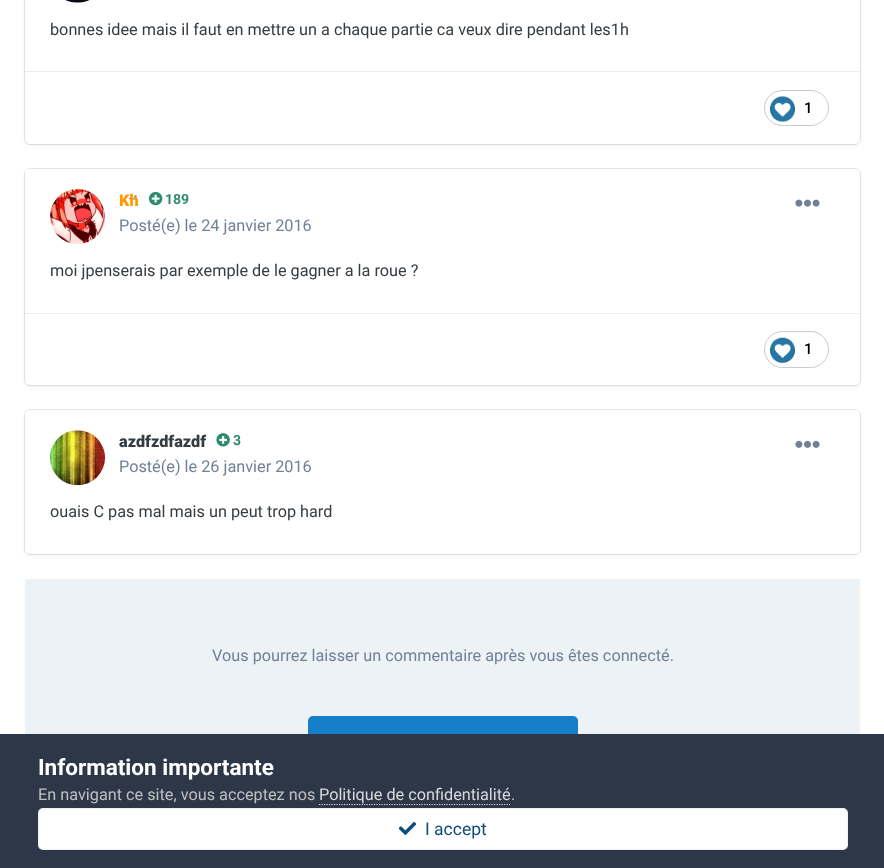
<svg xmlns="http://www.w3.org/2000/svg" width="884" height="868">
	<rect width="100%" height="100%" fill="#FFFFFF" />
	<rect x="26" y="-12" width="833" height="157" rx="4" fill="#2D3748" fill-opacity="0.1" filter="blur(2.5px)" />
	<rect x="24.5" y="-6.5" width="836" height="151" rx="5.5" fill="none" stroke="#718096" stroke-opacity="0.2" />
	<rect x="25" y="-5" width="835" height="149" rx="5" fill="#FFFFFF" />
	<image x="65" y="0" width="25" height="3" href="assets/img1.png" />
	<text x="50" y="35" font-family="Roboto" font-size="16.25" fill="#353C41">bonnes idee mais il faut en mettre un a chaque partie ca veux dire pendant les1h</text>
	<rect x="25" y="71" width="835" height="1" fill="#EBECEC" />
	<rect x="764.5" y="90.5" width="64" height="35" rx="17.5" fill="none" stroke="#C6CCD5" />
	<image x="770" y="96" width="25" height="26" href="assets/img2.png" />
	<text x="804" y="113" font-family="Roboto" font-size="15" font-weight="500" fill="#000000">1</text>
	<rect x="26" y="173" width="833" height="213" rx="4" fill="#2D3748" fill-opacity="0.1" filter="blur(2.5px)" />
	<rect x="24.5" y="168.5" width="836" height="217" rx="5.5" fill="none" stroke="#718096" stroke-opacity="0.2" />
	<rect x="25" y="169" width="835" height="216" rx="5" fill="#FFFFFF" />
	<image x="50" y="189" width="55" height="55" href="assets/img3.png" />
	<image x="128" y="195" width="9" height="6" href="assets/img4.png" />
	<text x="119" y="206" font-family="Roboto" font-size="16.25" font-weight="900" fill="#FF9900">Kh</text>
	<image x="149" y="191" width="14" height="15" href="assets/img5.png" />
	<text x="165" y="204" font-family="Roboto" font-size="14" font-weight="700" fill="#2C8C69">189</text>
	<text x="119" y="231" font-family="Roboto" font-size="16.25" fill="#718096">Posté(e) le 24 janvier 2016</text>
	<image x="795" y="199" width="25" height="8" href="assets/img6.png" />
	<text x="50" y="276" font-family="Roboto" font-size="16.25" fill="#353C41">moi jpenserais par exemple de le gagner a la roue ?</text>
	<rect x="25" y="313" width="835" height="1" fill="#EBECEC" />
	<rect x="764.5" y="331.5" width="64" height="36" rx="18" fill="none" stroke="#C6CCD5" />
	<image x="770" y="337" width="25" height="26" href="assets/img7.png" />
	<text x="804" y="354" font-family="Roboto" font-size="15" font-weight="500" fill="#000000">1</text>
	<rect x="26" y="414" width="833" height="141" rx="4" fill="#2D3748" fill-opacity="0.1" filter="blur(2.5px)" />
	<rect x="24.5" y="409.5" width="836" height="145" rx="5.5" fill="none" stroke="#718096" stroke-opacity="0.2" />
	<rect x="25" y="410" width="835" height="144" rx="5" fill="#FFFFFF" />
	<image x="50" y="430" width="55" height="56" href="assets/img8.png" />
	<text x="119" y="447" font-family="Roboto" font-size="16.25" font-weight="900" fill="#353C41">azdfzdfazdf</text>
	<image x="216" y="433" width="14" height="14" href="assets/img9.png" />
	<text x="233" y="445" font-family="Roboto" font-size="14" font-weight="700" fill="#2C8C69">3</text>
	<text x="119" y="472" font-family="Roboto" font-size="16.25" fill="#718096">Posté(e) le 26 janvier 2016</text>
	<image x="795" y="440" width="25" height="8" href="assets/img10.png" />
	<text x="50" y="517" font-family="Roboto" font-size="16.25" fill="#353C41">ouais C pas mal mais un peut trop hard</text>
	<rect x="25" y="579" width="835" height="155" fill="#EDF2F7" />
	<text x="212" y="661" font-family="Roboto" font-size="16.25" fill="#718096">Vous pourrez laisser un commentaire après vous êtes connecté.</text>
	<rect x="308" y="716" width="270" height="55" rx="5" fill="#177EC9" />
	<rect x="0" y="734" width="884" height="134" fill="#2D3748" />
	<text x="38" y="775" font-family="Roboto" font-size="22.5" font-weight="700" fill="#FFFFFF">Information importante</text>
	<text x="38" y="800" font-family="Roboto" font-size="16.25" fill="#C0C0C0">En navigant ce site, vous acceptez nos</text>
	<path d="M319 804.5H510" fill="none" stroke="#DADADA" stroke-width="1.2" stroke-dasharray="1.25 1.25" />
	<text x="319" y="800" font-family="Roboto" font-size="16.25" fill="#DADADA">Politique de confidentialité</text>
	<text x="511" y="800" font-family="Roboto" font-size="16.25" fill="#C0C0C0">.</text>
	<rect x="38" y="808" width="810" height="42" rx="5" fill="#FFFFFF" />
	<rect x="38.5" y="808.5" width="809" height="41" rx="4.5" fill="none" stroke="#0E4C79" stroke-opacity="0.07" />
	<image x="398" y="821" width="19" height="14" href="assets/img11.png" />
	<text x="425" y="835" font-family="Roboto" font-size="17.5" fill="#0E4C79">I accept</text>
</svg>
